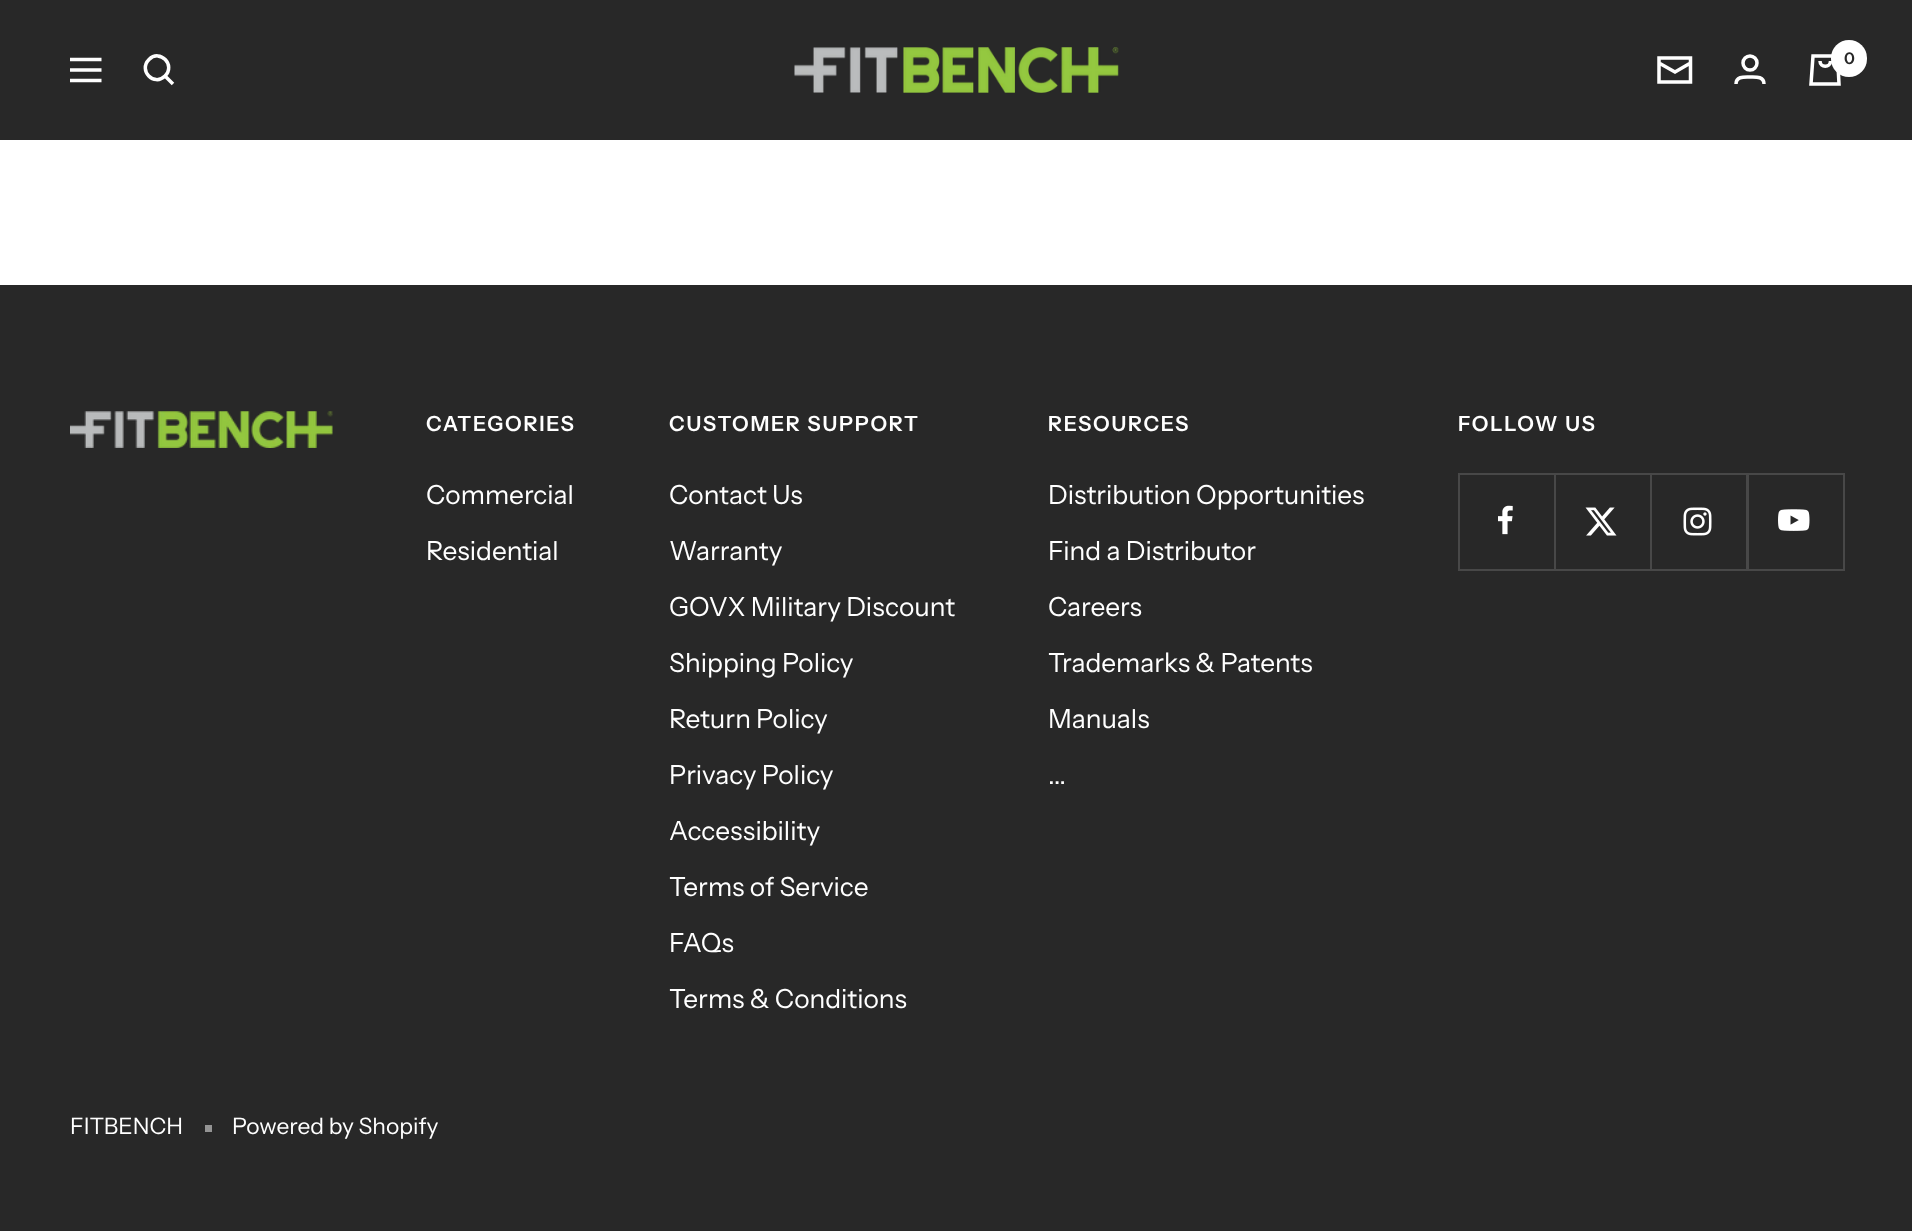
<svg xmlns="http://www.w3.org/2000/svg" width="1912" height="1231">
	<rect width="100%" height="100%" fill="#FFFFFF" />
	<rect x="0" y="0" width="1912" height="140" fill="#282828" />
	<path d="M70 59.5H101.5M70 80.5H101.5ZM70 70H101.5Z" fill="none" stroke="#FFFFFF" stroke-width="3.5" />
	<path d="M165 76C176 65 160 48.5 149 59.5C138 70.5 154 87 165 76ZM165 76L173 84" fill="none" stroke="#FFFFFF" stroke-width="3.5" />
	<image x="794" y="47" width="325" height="46" href="assets/img1.png" />
	<path d="M1690.5 63L1675 72L1659 63M1659 58H1690.5V82H1659Z" fill="none" stroke="#FFFFFF" stroke-width="3.5" />
	<circle cx="1750" cy="63" r="7" fill="none" stroke="#FFFFFF" stroke-width="3.5" />
	<path d="M1736 84C1736 76 1744.5 77 1750 77C1755.5 77 1764 76 1764 84" fill="none" stroke="#FFFFFF" stroke-width="3.5" />
	<path d="M1813 56H1837.5L1839 84H1811ZM1820 61C1820 68 1830.5 68 1830.5 61" fill="none" stroke="#FFFFFF" stroke-width="3.5" />
	<rect x="1831" y="40" width="36" height="37" rx="18" fill="#FFFFFF" />
	<text x="1844" y="64" font-family="Instrument Sans" font-size="16" font-weight="600" fill="#282828">0</text>
	<rect x="0" y="285" width="1912" height="946" fill="#282828" />
	<image x="70" y="411" width="263" height="37" href="assets/img2.png" />
	<text x="426" y="431" font-family="Instrument Sans" font-size="21" font-weight="600" letter-spacing="1.75" fill="#FFFFFF">CATEGORIES</text>
	<g font-family="Instrument Sans" font-size="26.25" fill="#FFFFFF">
		<text x="426" y="504">Commercial</text>
		<text x="426" y="560">Residential</text>
	</g>
	<text x="669" y="431" font-family="Instrument Sans" font-size="21" font-weight="600" letter-spacing="1.75" fill="#FFFFFF">CUSTOMER SUPPORT</text>
	<g font-family="Instrument Sans" font-size="26.25" fill="#FFFFFF">
		<text x="669" y="504">Contact Us</text>
		<text x="669" y="560">Warranty</text>
		<text x="669" y="616">GOVX Military Discount</text>
		<text x="669" y="672">Shipping Policy</text>
		<text x="669" y="728">Return Policy</text>
		<text x="669" y="784">Privacy Policy</text>
		<text x="669" y="840">Accessibility</text>
		<text x="669" y="896">Terms of Service</text>
		<text x="669" y="952">FAQs</text>
		<text x="669" y="1008">Terms &amp; Conditions</text>
	</g>
	<text x="1048" y="431" font-family="Instrument Sans" font-size="21" font-weight="600" letter-spacing="1.75" fill="#FFFFFF">RESOURCES</text>
	<g font-family="Instrument Sans" font-size="26.25" fill="#FFFFFF">
		<text x="1048" y="504">Distribution Opportunities</text>
		<text x="1048" y="560">Find a Distributor</text>
		<text x="1048" y="616">Careers</text>
		<text x="1048" y="672">Trademarks &amp; Patents</text>
		<text x="1048" y="728">Manuals</text>
		<text x="1048" y="784">...</text>
	</g>
	<text x="1458" y="431" font-family="Instrument Sans" font-size="21" font-weight="600" letter-spacing="1.75" fill="#FFFFFF">FOLLOW US</text>
	<path d="M1460 569V571H1556V474H1554V569Z" fill="#484848" />
	<rect x="1458" y="569" width="2" height="2" fill="#484848" />
	<path d="M1460 569H1556V473H1554V569Z" fill="#484848" />
	<rect x="1458" y="473" width="96" height="2" fill="#484848" />
	<rect x="1458" y="473" width="2" height="96" fill="#484848" />
	<image x="1498" y="505" width="15" height="30" href="assets/img3.png" />
	<path d="M1556 569V571H1652V474H1650V569Z" fill="#484848" />
	<path d="M1556 569H1652V473H1650V569Z" fill="#484848" />
	<rect x="1554" y="473" width="96" height="2" fill="#484848" />
	<image x="1585" y="507" width="32" height="29" href="assets/img4.png" />
	<path d="M1652 569V571H1748V474H1746V569Z" fill="#484848" />
	<path d="M1652 569H1748V473H1746V569Z" fill="#484848" />
	<rect x="1650" y="473" width="97" height="2" fill="#484848" />
	<image x="1683" y="507" width="29" height="29" href="assets/img5.png" />
	<path d="M1748 569V571H1845V474H1843V569Z" fill="#484848" />
	<path d="M1748 569H1845V473H1843V569Z" fill="#484848" />
	<rect x="1747" y="473" width="96" height="2" fill="#484848" />
	<rect x="1748" y="473" width="1" height="96" fill="#484848" />
	<image x="1778" y="509" width="32" height="22" href="assets/img6.png" />
	<text x="70" y="1134" font-family="Instrument Sans" font-size="22.75" fill="#FFFFFF">FITBENCH</text>
	<rect x="205" y="1125" width="7" height="7" fill="#949494" />
	<text x="232" y="1134" font-family="Instrument Sans" font-size="22.75" fill="#FFFFFF">Powered by Shopify</text>
</svg>
